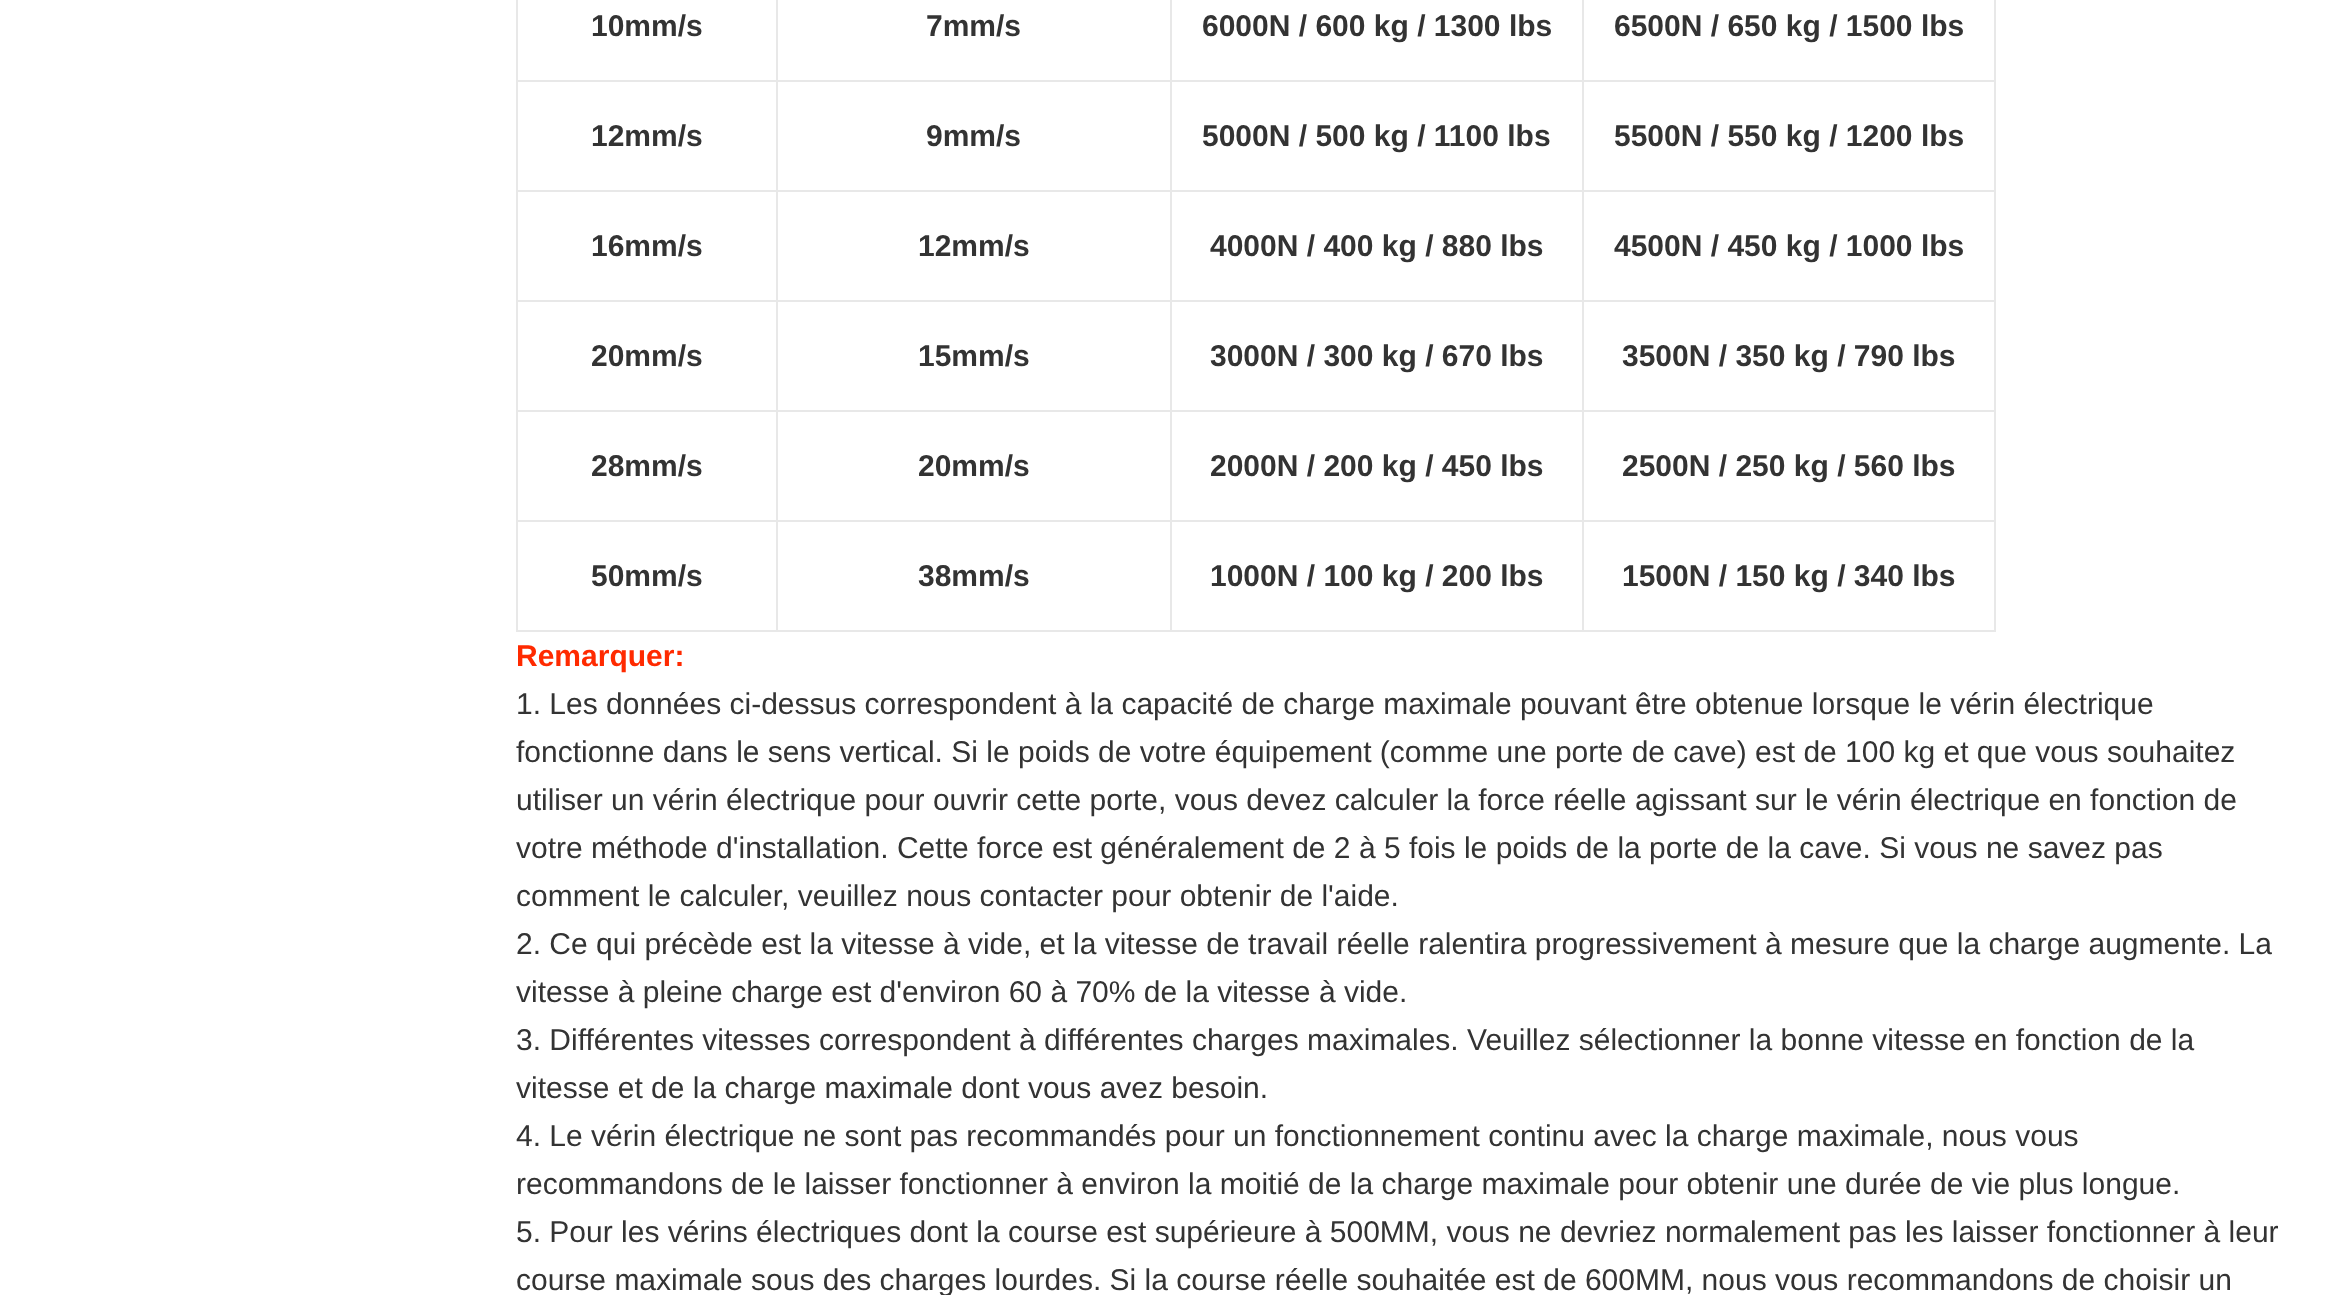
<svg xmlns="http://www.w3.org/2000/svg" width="2342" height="1295">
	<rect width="100%" height="100%" fill="#FFFFFF" />
	<rect x="1994" y="0" width="2" height="632" fill="#E8E8E8" />
	<rect x="516" y="630" width="1480" height="2" fill="#E8E8E8" />
	<rect x="516" y="0" width="2" height="632" fill="#E8E8E8" />
	<text x="591" y="36" font-family="Liberation Sans" font-size="30" font-weight="700" fill="#333333">10mm/s</text>
	<rect x="1582" y="80" width="414" height="2" fill="#E8E8E8" />
	<rect x="1582" y="190" width="414" height="2" fill="#E8E8E8" />
	<rect x="1582" y="300" width="414" height="2" fill="#E8E8E8" />
	<rect x="1582" y="410" width="414" height="2" fill="#E8E8E8" />
	<rect x="1582" y="520" width="414" height="2" fill="#E8E8E8" />
	<rect x="1582" y="520" width="2" height="112" fill="#E8E8E8" />
	<rect x="1170" y="520" width="414" height="2" fill="#E8E8E8" />
	<rect x="1582" y="410" width="2" height="112" fill="#E8E8E8" />
	<rect x="1170" y="410" width="414" height="2" fill="#E8E8E8" />
	<rect x="1582" y="300" width="2" height="112" fill="#E8E8E8" />
	<rect x="1170" y="300" width="414" height="2" fill="#E8E8E8" />
	<rect x="1582" y="190" width="2" height="112" fill="#E8E8E8" />
	<rect x="1170" y="190" width="414" height="2" fill="#E8E8E8" />
	<rect x="1582" y="80" width="2" height="112" fill="#E8E8E8" />
	<rect x="1170" y="80" width="414" height="2" fill="#E8E8E8" />
	<rect x="1170" y="520" width="2" height="112" fill="#E8E8E8" />
	<rect x="776" y="520" width="396" height="2" fill="#E8E8E8" />
	<rect x="1170" y="410" width="2" height="112" fill="#E8E8E8" />
	<rect x="776" y="410" width="396" height="2" fill="#E8E8E8" />
	<rect x="1170" y="300" width="2" height="112" fill="#E8E8E8" />
	<rect x="776" y="300" width="396" height="2" fill="#E8E8E8" />
	<rect x="1170" y="190" width="2" height="112" fill="#E8E8E8" />
	<rect x="776" y="190" width="396" height="2" fill="#E8E8E8" />
	<rect x="1170" y="80" width="2" height="112" fill="#E8E8E8" />
	<rect x="776" y="80" width="396" height="2" fill="#E8E8E8" />
	<rect x="776" y="520" width="2" height="112" fill="#E8E8E8" />
	<rect x="516" y="520" width="262" height="2" fill="#E8E8E8" />
	<rect x="776" y="410" width="2" height="112" fill="#E8E8E8" />
	<rect x="516" y="410" width="262" height="2" fill="#E8E8E8" />
	<rect x="776" y="300" width="2" height="112" fill="#E8E8E8" />
	<rect x="516" y="300" width="262" height="2" fill="#E8E8E8" />
	<rect x="776" y="190" width="2" height="112" fill="#E8E8E8" />
	<rect x="516" y="190" width="262" height="2" fill="#E8E8E8" />
	<rect x="776" y="80" width="2" height="112" fill="#E8E8E8" />
	<rect x="516" y="80" width="262" height="2" fill="#E8E8E8" />
	<rect x="776" y="0" width="2" height="82" fill="#E8E8E8" />
	<text x="926" y="36" font-family="Liberation Sans" font-size="30" font-weight="700" fill="#333333">7mm/s</text>
	<rect x="1170" y="0" width="2" height="82" fill="#E8E8E8" />
	<text x="1202" y="36" font-family="Liberation Sans" font-size="30" font-weight="700" fill="#333333">6000N / 600 kg / 1300 lbs</text>
	<rect x="1582" y="0" width="2" height="82" fill="#E8E8E8" />
	<g font-family="Liberation Sans" font-size="30" font-weight="700" fill="#333333">
		<text x="1614" y="36">6500N / 650 kg / 1500 lbs</text>
		<text x="591" y="146">12mm/s</text>
		<text x="926" y="146">9mm/s</text>
		<text x="1202" y="146">5000N / 500 kg / 1100 lbs</text>
		<text x="1614" y="146">5500N / 550 kg / 1200 lbs</text>
		<text x="591" y="256">16mm/s</text>
		<text x="918" y="256">12mm/s</text>
		<text x="1210" y="256">4000N / 400 kg / 880 lbs</text>
		<text x="1614" y="256">4500N / 450 kg / 1000 lbs</text>
		<text x="591" y="366">20mm/s</text>
		<text x="918" y="366">15mm/s</text>
		<text x="1210" y="366">3000N / 300 kg / 670 lbs</text>
		<text x="1622" y="366">3500N / 350 kg / 790 lbs</text>
		<text x="591" y="476">28mm/s</text>
		<text x="918" y="476">20mm/s</text>
		<text x="1210" y="476">2000N / 200 kg / 450 lbs</text>
		<text x="1622" y="476">2500N / 250 kg / 560 lbs</text>
		<text x="591" y="586">50mm/s</text>
		<text x="918" y="586">38mm/s</text>
		<text x="1210" y="586">1000N / 100 kg / 200 lbs</text>
		<text x="1622" y="586">1500N / 150 kg / 340 lbs</text>
	</g>
	<text x="516" y="666" font-family="Liberation Sans" font-size="30" font-weight="700" fill="#FF2A00">Remarquer:</text>
	<g font-family="Liberation Sans" font-size="30" fill="#333333">
		<text x="516" y="714">1. Les données ci-dessus correspondent à la capacité de charge maximale pouvant être obtenue lorsque le vérin électrique</text>
		<text x="516" y="762">fonctionne dans le sens vertical. Si le poids de votre équipement (comme une porte de cave) est de 100 kg et que vous souhaitez</text>
		<text x="516" y="810">utiliser un vérin électrique pour ouvrir cette porte, vous devez calculer la force réelle agissant sur le vérin électrique en fonction de</text>
		<text x="516" y="858">votre méthode d'installation. Cette force est généralement de 2 à 5 fois le poids de la porte de la cave. Si vous ne savez pas</text>
		<text x="516" y="906">comment le calculer, veuillez nous contacter pour obtenir de l'aide.</text>
		<text x="516" y="954">2. Ce qui précède est la vitesse à vide, et la vitesse de travail réelle ralentira progressivement à mesure que la charge augmente. La</text>
		<text x="516" y="1002">vitesse à pleine charge est d'environ 60 à 70% de la vitesse à vide.</text>
		<text x="516" y="1050">3. Différentes vitesses correspondent à différentes charges maximales. Veuillez sélectionner la bonne vitesse en fonction de la</text>
		<text x="516" y="1098">vitesse et de la charge maximale dont vous avez besoin.</text>
		<text x="516" y="1146">4. Le vérin électrique ne sont pas recommandés pour un fonctionnement continu avec la charge maximale, nous vous</text>
		<text x="516" y="1194">recommandons de le laisser fonctionner à environ la moitié de la charge maximale pour obtenir une durée de vie plus longue.</text>
		<text x="516" y="1242">5. Pour les vérins électriques dont la course est supérieure à 500MM, vous ne devriez normalement pas les laisser fonctionner à leur</text>
		<text x="516" y="1290">course maximale sous des charges lourdes. Si la course réelle souhaitée est de 600MM, nous vous recommandons de choisir un</text>
	</g>
</svg>
